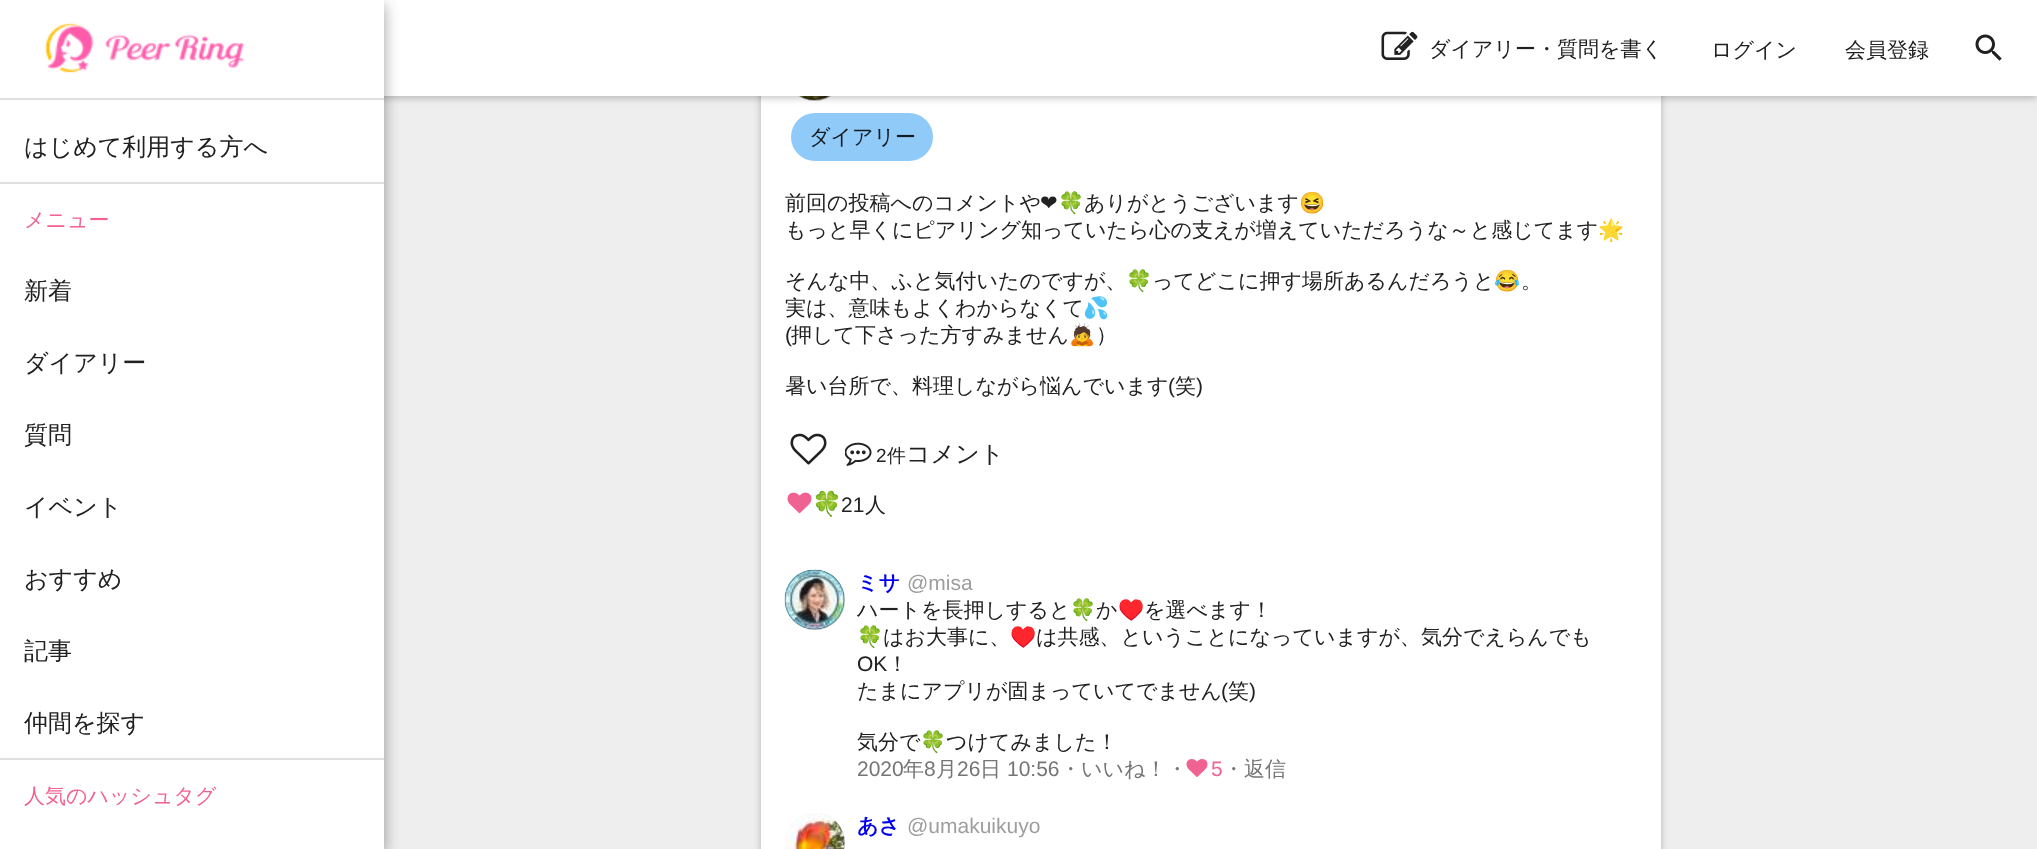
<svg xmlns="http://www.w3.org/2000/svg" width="2037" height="849">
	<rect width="100%" height="100%" fill="#EEEEEE" />
	<rect x="761" y="18" width="900" height="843" rx="3" fill="#000000" fill-opacity="0.12" filter="blur(3px)" />
	<rect x="761" y="18" width="900" height="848" rx="3" fill="#000000" fill-opacity="0.12" filter="blur(4.5px)" />
	<rect x="761" y="96" width="900" height="753" fill="#FFFFFF" />
	<circle cx="815" cy="71" r="30" fill="#BCBCBC" />
	<image x="800" y="96" width="29" height="4" href="assets/img4.png" />
	<rect x="0" y="2" width="2037" height="96" fill="#000000" fill-opacity="0.12" filter="blur(3px)" />
	<rect x="0" y="2" width="2037" height="96" fill="#000000" fill-opacity="0.12" filter="blur(4.5px)" />
	<rect x="384" y="0" width="1653" height="96" fill="#FFFFFF" />
	<image x="1381" y="31" width="37" height="29" href="assets/img1.png" />
	<g font-family="WenQuanYi Zen Hei" font-size="21" font-weight="500" fill="#212121">
		<text x="1429" y="56">ダイアリー・質問を書く</text>
		<text x="1711" y="57">ログイン</text>
		<text x="1845" y="57">会員登録</text>
	</g>
	<image x="1975" y="34" width="27" height="27" href="assets/img2.png" />
	<rect x="0" y="5" width="384" height="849" fill="#000000" fill-opacity="0.23" filter="blur(7.5px)" />
	<rect x="0" y="5" width="384" height="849" fill="#000000" fill-opacity="0.16" filter="blur(7.5px)" />
	<rect x="0" y="0" width="384" height="849" fill="#FFFFFF" />
	<image x="44" y="22" width="201" height="51" href="assets/img3.png" />
	<rect x="0" y="98" width="384" height="2" fill="#E0E0E0" />
	<text x="24" y="155" font-family="WenQuanYi Zen Hei" font-size="24" font-weight="500" fill="#212121">はじめて利用する方へ</text>
	<rect x="0" y="182" width="384" height="2" fill="#E0E0E0" />
	<text x="24" y="227" font-family="WenQuanYi Zen Hei" font-size="21" font-weight="500" fill="#F06292">メニュー</text>
	<g font-family="WenQuanYi Zen Hei" font-size="24" font-weight="500" fill="#212121">
		<text x="24" y="299">新着</text>
		<text x="24" y="371">ダイアリー</text>
		<text x="24" y="443">質問</text>
		<text x="24" y="515">イベント</text>
		<text x="24" y="587">おすすめ</text>
		<text x="24" y="659">記事</text>
		<text x="24" y="731">仲間を探す</text>
	</g>
	<rect x="0" y="758" width="384" height="2" fill="#E0E0E0" />
	<text x="24" y="803" font-family="WenQuanYi Zen Hei" font-size="21" font-weight="500" fill="#F06292">人気のハッシュタグ</text>
	<rect x="791" y="113" width="142" height="48" rx="24" fill="#90CAF9" />
	<text x="809" y="144" font-family="WenQuanYi Zen Hei" font-size="21" font-weight="500" fill="#131A20">ダイアリー</text>
	<text x="785" y="210" font-family="WenQuanYi Zen Hei" font-size="21" font-weight="500" fill="#212121">前回の投稿へのコメントや</text>
	<text x="1040" y="210" font-family="DejaVu Sans" font-size="21" fill="#212121">❤</text>
	<text x="1058" y="210" font-family="Noto Color Emoji" font-size="21" fill="#212121">🍀</text>
	<text x="1084" y="210" font-family="WenQuanYi Zen Hei" font-size="21" font-weight="500" fill="#212121">ありがとうございます</text>
	<text x="1299" y="210" font-family="Noto Color Emoji" font-size="21" fill="#212121">😆</text>
	<text x="785" y="237" font-family="WenQuanYi Zen Hei" font-size="21" font-weight="500" fill="#212121">もっと早くにピアリング知っていたら心の支えが増えていただろうな～と感じてます</text>
	<text x="1598" y="237" font-family="Noto Color Emoji" font-size="21" fill="#212121">🌟</text>
	<text x="785" y="288" font-family="WenQuanYi Zen Hei" font-size="21" font-weight="500" fill="#212121">そんな中、ふと気付いたのですが、</text>
	<text x="1126" y="288" font-family="Noto Color Emoji" font-size="21" fill="#212121">🍀</text>
	<text x="1152" y="288" font-family="WenQuanYi Zen Hei" font-size="21" font-weight="500" fill="#212121">ってどこに押す場所あるんだろうと</text>
	<text x="1494" y="288" font-family="Noto Color Emoji" font-size="21" fill="#212121">😂</text>
	<g font-family="WenQuanYi Zen Hei" font-size="21" font-weight="500" fill="#212121">
		<text x="1521" y="288">。</text>
		<text x="785" y="315">実は、意味もよくわからなくて</text>
	</g>
	<text x="1083" y="315" font-family="Noto Color Emoji" font-size="21" fill="#212121">💦</text>
	<text x="785" y="342" font-family="Liberation Sans" font-size="21" fill="#212121">(</text>
	<text x="791" y="342" font-family="WenQuanYi Zen Hei" font-size="21" font-weight="500" fill="#212121">押して下さった方すみません</text>
	<text x="1069" y="342" font-family="Noto Color Emoji" font-size="21" fill="#212121">🙇</text>
	<g font-family="WenQuanYi Zen Hei" font-size="21" font-weight="500" fill="#212121">
		<text x="1096" y="342">）</text>
		<text x="785" y="393">暑い台所で、料理しながら悩んでいます</text>
	</g>
	<text x="1168" y="393" font-family="Liberation Sans" font-size="21" fill="#212121">(</text>
	<text x="1175" y="393" font-family="WenQuanYi Zen Hei" font-size="21" font-weight="500" fill="#212121">笑</text>
	<text x="1196" y="393" font-family="Liberation Sans" font-size="21" fill="#212121">)</text>
	<image x="790" y="433" width="37" height="32" href="assets/img5.png" />
	<image x="845" y="442" width="27" height="24" href="assets/img6.png" />
	<text x="876" y="462" font-family="Liberation Sans" font-size="19" fill="#212121">2</text>
	<text x="887" y="462" font-family="WenQuanYi Zen Hei" font-size="19" font-weight="500" fill="#212121">件</text>
	<text x="906" y="462" font-family="WenQuanYi Zen Hei" font-size="24" font-weight="500" fill="#212121">コメント</text>
	<image x="787" y="492" width="25" height="22" href="assets/img7.png" />
	<text x="812" y="512" font-family="Noto Color Emoji" font-size="24" fill="#4CAF50">🍀</text>
	<text x="841" y="512" font-family="Liberation Sans" font-size="21" fill="#212121">21</text>
	<text x="865" y="512" font-family="WenQuanYi Zen Hei" font-size="21" font-weight="500" fill="#212121">人</text>
	<circle cx="815" cy="600" r="30" fill="#BCBCBC" />
	<image x="784" y="569" width="61" height="61" href="assets/img8.png" />
	<text x="857" y="590" font-family="WenQuanYi Zen Hei" font-size="21" font-weight="700" fill="#0000EE">ミサ</text>
	<text x="907" y="590" font-family="Liberation Sans" font-size="21" fill="#9E9E9E">@misa</text>
	<text x="857" y="617" font-family="WenQuanYi Zen Hei" font-size="21" font-weight="500" fill="#212121">ハートを長押しすると</text>
	<text x="1070" y="617" font-family="Noto Color Emoji" font-size="21" fill="#212121">🍀</text>
	<text x="1096" y="617" font-family="WenQuanYi Zen Hei" font-size="21" font-weight="500" fill="#212121">か</text>
	<text x="1118" y="617" font-family="Noto Color Emoji" font-size="21" fill="#212121">♥️</text>
	<text x="1144" y="617" font-family="WenQuanYi Zen Hei" font-size="21" font-weight="500" fill="#212121">を選べます！</text>
	<text x="857" y="644" font-family="Noto Color Emoji" font-size="21" fill="#212121">🍀</text>
	<text x="883" y="644" font-family="WenQuanYi Zen Hei" font-size="21" font-weight="500" fill="#212121">はお大事に、</text>
	<text x="1010" y="644" font-family="Noto Color Emoji" font-size="21" fill="#212121">♥️</text>
	<text x="1036" y="644" font-family="WenQuanYi Zen Hei" font-size="21" font-weight="500" fill="#212121">は共感、ということになっていますが、気分でえらんでも</text>
	<text x="857" y="671" font-family="Liberation Sans" font-size="21" fill="#212121">OK</text>
	<g font-family="WenQuanYi Zen Hei" font-size="21" font-weight="500" fill="#212121">
		<text x="887" y="671">！</text>
		<text x="857" y="698">たまにアプリが固まっていてでません</text>
	</g>
	<text x="1221" y="698" font-family="Liberation Sans" font-size="21" fill="#212121">(</text>
	<text x="1228" y="698" font-family="WenQuanYi Zen Hei" font-size="21" font-weight="500" fill="#212121">笑</text>
	<text x="1249" y="698" font-family="Liberation Sans" font-size="21" fill="#212121">)</text>
	<text x="857" y="749" font-family="WenQuanYi Zen Hei" font-size="21" font-weight="500" fill="#212121">気分で</text>
	<text x="920" y="749" font-family="Noto Color Emoji" font-size="21" fill="#212121">🍀</text>
	<text x="946" y="749" font-family="WenQuanYi Zen Hei" font-size="21" font-weight="500" fill="#212121">つけてみました！</text>
	<text x="857" y="776" font-family="Liberation Sans" font-size="21" fill="#757575">2020</text>
	<text x="903" y="776" font-family="WenQuanYi Zen Hei" font-size="21" font-weight="500" fill="#757575">年</text>
	<text x="924" y="776" font-family="Liberation Sans" font-size="21" fill="#757575">8</text>
	<text x="936" y="776" font-family="WenQuanYi Zen Hei" font-size="21" font-weight="500" fill="#757575">月</text>
	<text x="957" y="776" font-family="Liberation Sans" font-size="21" fill="#757575">26</text>
	<text x="980" y="776" font-family="WenQuanYi Zen Hei" font-size="21" font-weight="500" fill="#757575">日</text>
	<text x="1007" y="776" font-family="Liberation Sans" font-size="21" fill="#757575">10:56</text>
	<text x="1060" y="776" font-family="WenQuanYi Zen Hei" font-size="21" font-weight="500" fill="#757575">・いいね！・</text>
	<image x="1186" y="759" width="22" height="18" href="assets/img9.png" />
	<text x="1211" y="776" font-family="Liberation Sans" font-size="21" fill="#F06292">5</text>
	<text x="1223" y="776" font-family="WenQuanYi Zen Hei" font-size="21" font-weight="500" fill="#757575">・返信</text>
	<circle cx="815" cy="843" r="30" fill="#BCBCBC" />
	<image x="785" y="813" width="60" height="36" href="assets/img10.png" />
	<text x="857" y="833" font-family="WenQuanYi Zen Hei" font-size="21" font-weight="700" fill="#0000EE">あさ</text>
	<text x="907" y="833" font-family="Liberation Sans" font-size="21" fill="#9E9E9E">@umakuikuyo</text>
</svg>
